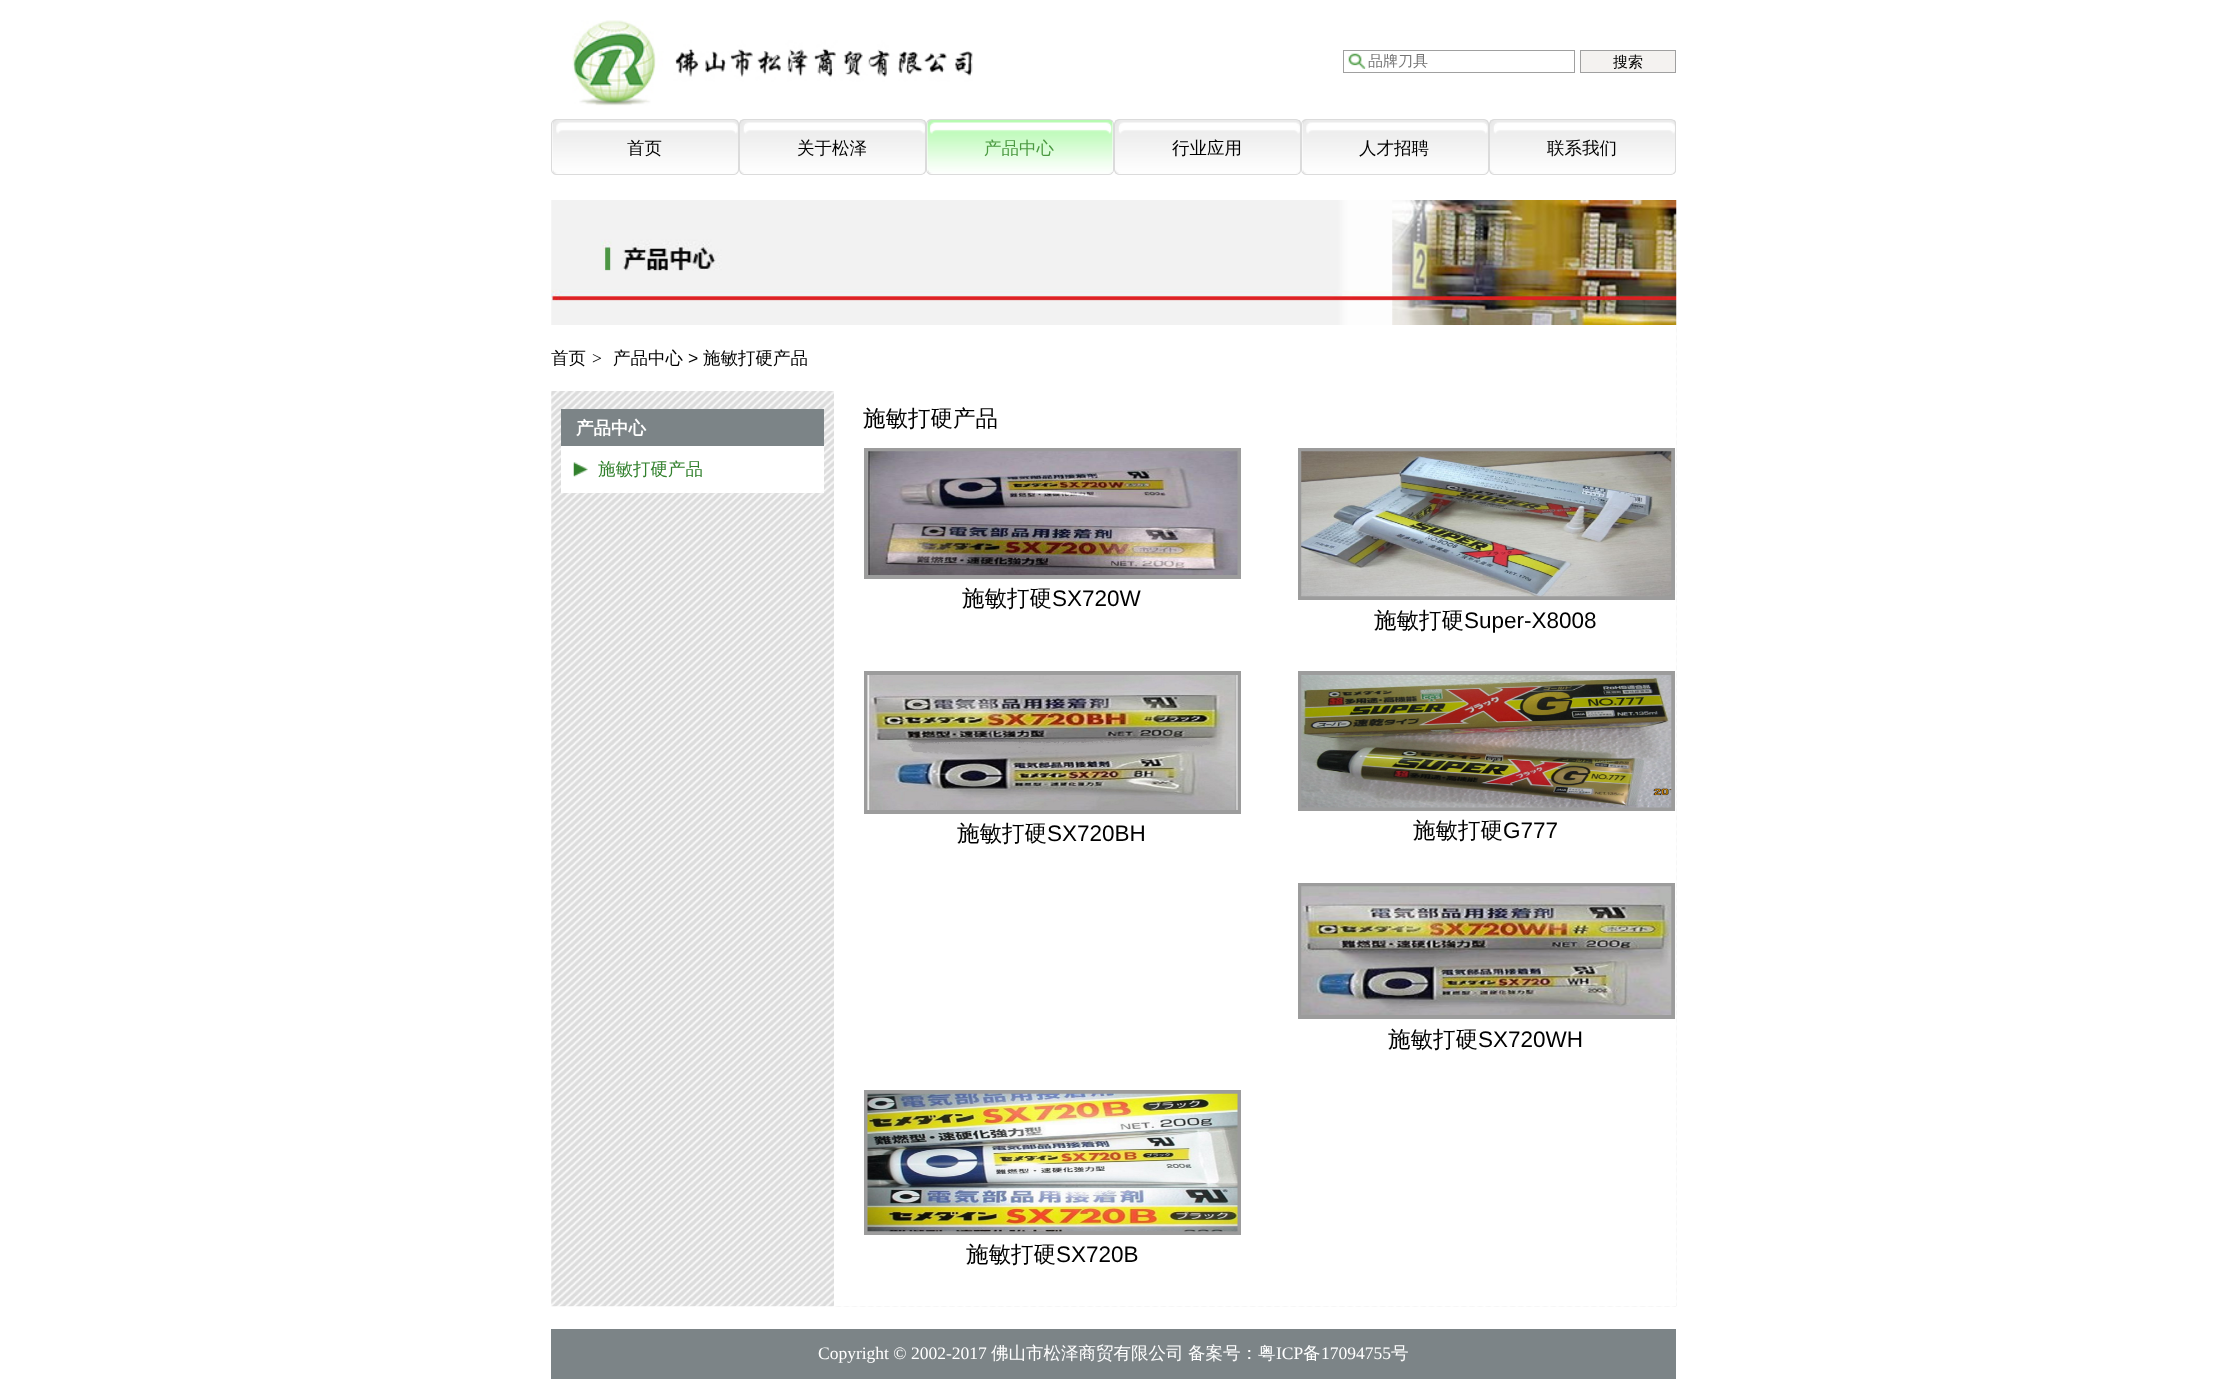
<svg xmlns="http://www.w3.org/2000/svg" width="2226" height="1400">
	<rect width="100%" height="100%" fill="#FFFFFF" />
	<image x="572" y="20" width="401" height="86" href="assets/img1.png" />
	<image x="1348" y="53" width="18" height="16" href="assets/img2.png" />
	<rect x="1343.5" y="50.5" width="231" height="22" fill="none" stroke="#A0A0A0" />
	<text x="1368" y="66" font-family="WenQuanYi Zen Hei" font-size="15" font-weight="500" fill="#757575">品牌刀具</text>
	<rect x="1580.5" y="50.5" width="95" height="22" fill="#F4F2F0" stroke="#A0A0A0" />
	<text x="1613" y="67" font-family="WenQuanYi Zen Hei" font-size="15" font-weight="500" fill="#000000">搜索</text>
	<image x="552" y="120" width="187" height="54" href="assets/img3.png" />
	<rect x="551.5" y="119.5" width="187" height="55" rx="4.5" fill="none" stroke="#DBDBDB" />
	<text x="627" y="154" font-family="WenQuanYi Zen Hei" font-size="17.5" font-weight="500" fill="#000000">首页</text>
	<image x="740" y="120" width="186" height="54" href="assets/img4.png" />
	<rect x="739.5" y="119.5" width="186" height="55" rx="4.5" fill="none" stroke="#DBDBDB" />
	<text x="797" y="154" font-family="WenQuanYi Zen Hei" font-size="17.5" font-weight="500" fill="#000000">关于松泽</text>
	<image x="927" y="120" width="186" height="54" href="assets/img5.png" />
	<rect x="926.5" y="119.5" width="187" height="55" rx="4.5" fill="none" stroke="#DBDBDB" />
	<text x="984" y="154" font-family="WenQuanYi Zen Hei" font-size="17.5" font-weight="500" fill="#4B9941">产品中心</text>
	<image x="1115" y="120" width="186" height="54" href="assets/img6.png" />
	<rect x="1114.5" y="119.5" width="186" height="55" rx="4.5" fill="none" stroke="#DBDBDB" />
	<text x="1172" y="154" font-family="WenQuanYi Zen Hei" font-size="17.5" font-weight="500" fill="#000000">行业应用</text>
	<image x="1302" y="120" width="187" height="54" href="assets/img7.png" />
	<rect x="1301.5" y="119.5" width="187" height="55" rx="4.5" fill="none" stroke="#DBDBDB" />
	<text x="1359" y="154" font-family="WenQuanYi Zen Hei" font-size="17.5" font-weight="500" fill="#000000">人才招聘</text>
	<image x="1490" y="120" width="186" height="54" href="assets/img8.png" />
	<rect x="1489.5" y="119.5" width="186" height="55" rx="4.5" fill="none" stroke="#DBDBDB" />
	<text x="1547" y="154" font-family="WenQuanYi Zen Hei" font-size="17.5" font-weight="500" fill="#000000">联系我们</text>
	<image x="551" y="200" width="1126" height="125" href="assets/img9.png" />
	<image x="551" y="325" width="1126" height="982" href="assets/img10.png" />
	<rect x="551" y="325" width="1125" height="66" fill="#FFFFFF" />
	<text x="551" y="364" font-family="WenQuanYi Zen Hei" font-size="17.5" font-weight="500" fill="#000000">首页</text>
	<text x="592" y="364" font-family="Liberation Serif" font-size="17.5" fill="#000000">&gt;</text>
	<text x="613" y="364" font-family="WenQuanYi Zen Hei" font-size="17.5" font-weight="500" fill="#000000">产品中心</text>
	<text x="688" y="364" font-family="Liberation Sans" font-size="17.5" fill="#000000">&gt;</text>
	<text x="703" y="364" font-family="WenQuanYi Zen Hei" font-size="17.5" font-weight="500" fill="#000000">施敏打硬产品</text>
	<rect x="561" y="409" width="263" height="37" fill="#7C8487" />
	<text x="576" y="434" font-family="WenQuanYi Zen Hei" font-size="17.5" font-weight="700" fill="#FFFFFF">产品中心</text>
	<rect x="561" y="446" width="263" height="47" fill="#FFFFFF" />
	<image x="573" y="462" width="15" height="15" href="assets/img11.png" />
	<text x="598" y="475" font-family="WenQuanYi Zen Hei" font-size="17.5" font-weight="500" fill="#31802C">施敏打硬产品</text>
	<rect x="834" y="391" width="842" height="915" fill="#FFFFFF" />
	<text x="863" y="426" font-family="WenQuanYi Zen Hei" font-size="22.5" font-weight="500" fill="#000000">施敏打硬产品</text>
	<rect x="866" y="450" width="373" height="127" fill="none" stroke="#9C9C9C" stroke-width="4" />
	<image x="867" y="451" width="371" height="124" href="assets/img12.png" />
	<text x="962" y="606" font-family="WenQuanYi Zen Hei" font-size="22.5" font-weight="500" fill="#000000">施敏打硬</text>
	<text x="1052" y="606" font-family="Liberation Sans" font-size="22.5" fill="#000000">SX720W</text>
	<rect x="1300" y="450" width="373" height="148" fill="none" stroke="#9C9C9C" stroke-width="4" />
	<image x="1301" y="451" width="371" height="146" href="assets/img13.png" />
	<text x="1374" y="628" font-family="WenQuanYi Zen Hei" font-size="22.5" font-weight="500" fill="#000000">施敏打硬</text>
	<text x="1464" y="628" font-family="Liberation Sans" font-size="22.5" fill="#000000">Super-X8008</text>
	<rect x="866" y="673" width="373" height="139" fill="none" stroke="#9C9C9C" stroke-width="4" />
	<image x="867" y="675" width="371" height="135" href="assets/img14.png" />
	<text x="957" y="841" font-family="WenQuanYi Zen Hei" font-size="22.5" font-weight="500" fill="#000000">施敏打硬</text>
	<text x="1047" y="841" font-family="Liberation Sans" font-size="22.5" fill="#000000">SX720BH</text>
	<rect x="1300" y="673" width="373" height="136" fill="none" stroke="#9C9C9C" stroke-width="4" />
	<image x="1301" y="675" width="371" height="133" href="assets/img15.png" />
	<text x="1413" y="838" font-family="WenQuanYi Zen Hei" font-size="22.5" font-weight="500" fill="#000000">施敏打硬</text>
	<text x="1503" y="838" font-family="Liberation Sans" font-size="22.5" fill="#000000">G777</text>
	<rect x="1300" y="885" width="373" height="132" fill="none" stroke="#9C9C9C" stroke-width="4" />
	<image x="1301" y="886" width="371" height="129" href="assets/img16.png" />
	<text x="1388" y="1047" font-family="WenQuanYi Zen Hei" font-size="22.5" font-weight="500" fill="#000000">施敏打硬</text>
	<text x="1478" y="1047" font-family="Liberation Sans" font-size="22.5" fill="#000000">SX720WH</text>
	<rect x="866" y="1092" width="373" height="141" fill="none" stroke="#9C9C9C" stroke-width="4" />
	<image x="867" y="1093" width="371" height="139" href="assets/img17.png" />
	<text x="966" y="1262" font-family="WenQuanYi Zen Hei" font-size="22.5" font-weight="500" fill="#000000">施敏打硬</text>
	<text x="1056" y="1262" font-family="Liberation Sans" font-size="22.5" fill="#000000">SX720B</text>
	<rect x="551" y="1329" width="1125" height="50" fill="#7C8487" />
	<text x="818" y="1359" font-family="Liberation Serif" font-size="17.5" fill="#FFFFFF">Copyright © 2002-2017</text>
	<g font-family="WenQuanYi Zen Hei" font-size="17.5" font-weight="500" fill="#FFFFFF">
		<text x="991" y="1359">佛山市松泽商贸有限公司</text>
		<text x="1188" y="1359">备案号：粤</text>
	</g>
	<text x="1276" y="1359" font-family="Liberation Serif" font-size="17.5" fill="#FFFFFF">ICP</text>
	<text x="1303" y="1359" font-family="WenQuanYi Zen Hei" font-size="17.5" font-weight="500" fill="#FFFFFF">备</text>
	<text x="1321" y="1359" font-family="Liberation Serif" font-size="17.5" fill="#FFFFFF">17094755</text>
	<text x="1391" y="1359" font-family="WenQuanYi Zen Hei" font-size="17.5" font-weight="500" fill="#FFFFFF">号</text>
</svg>
